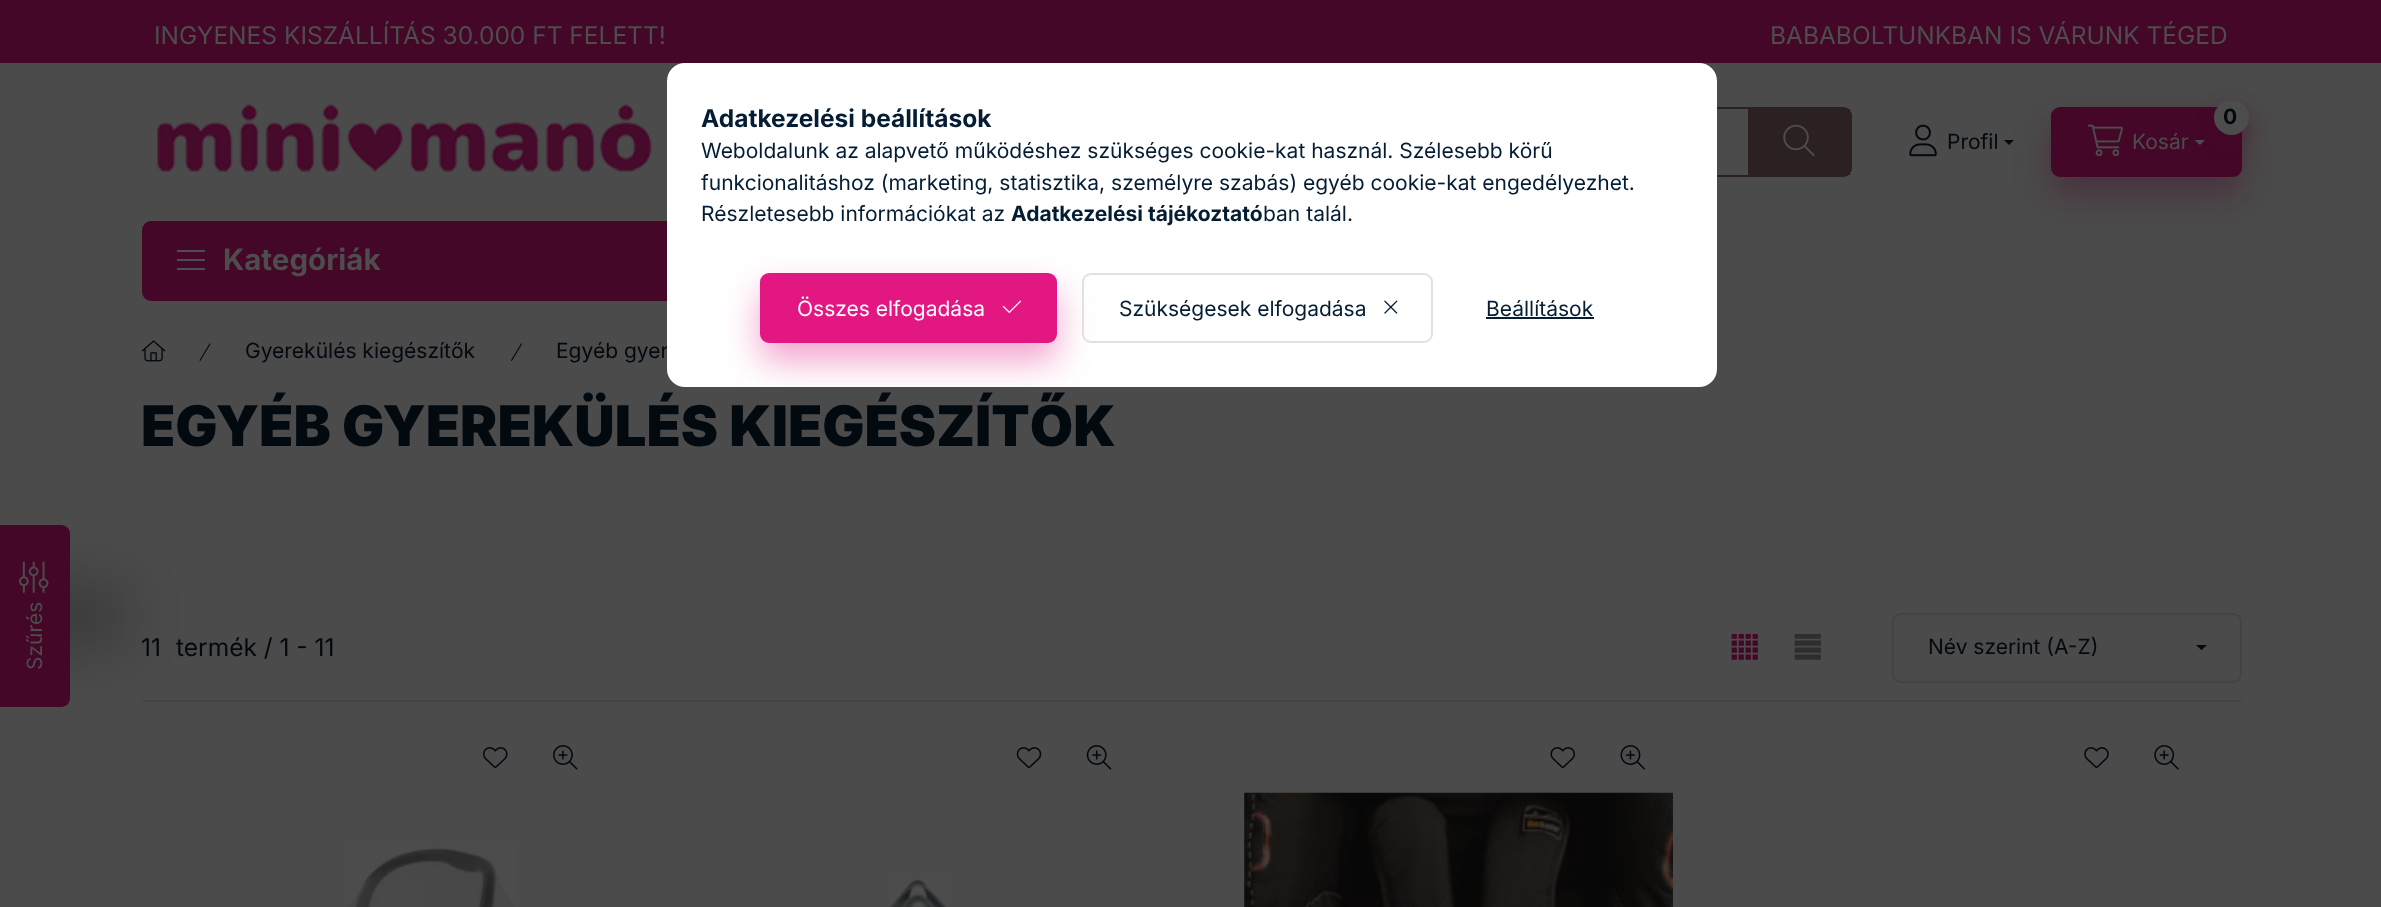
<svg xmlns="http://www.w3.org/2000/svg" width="2381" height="907">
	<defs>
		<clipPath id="clip1"><rect x="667" y="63" width="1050" height="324" rx="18" /></clipPath>
	</defs>
	<rect width="100%" height="100%" fill="#4B4B4B" />
	<rect x="0" y="0" width="2381" height="63" fill="#440727" />
	<g font-family="Inter" font-size="24.5" fill="#4D4D4D">
		<text x="154" y="44">INGYENES KISZÁLLÍTÁS 30.000 FT FELETT!</text>
		<text x="1770" y="44">BABABOLTUNKBAN IS VÁRUNK TÉGED</text>
	</g>
	<image x="157" y="104" width="495" height="68" href="assets/img1.png" />
	<rect x="808" y="108" width="1043" height="68" rx="8" fill="none" stroke="#2B2120" stroke-width="2" />
	<rect x="1748" y="109" width="102" height="66" fill="#2B2120" />
	<image x="1783" y="124" width="32" height="33" href="assets/img2.png" />
	<image x="1909" y="124" width="28" height="33" href="assets/img3.png" />
	<text x="1947" y="149" font-family="Inter" font-size="21" fill="#02090F">Profil</text>
	<rect x="2051" y="124" width="191" height="70" rx="9" fill="#440727" fill-opacity="0.4" filter="blur(17.5px)" />
	<path d="M2004 140H2014L2009 145Z" fill="#02090F" />
	<rect x="2051" y="107" width="191" height="70" rx="9" fill="#440727" />
	<rect x="2214" y="109" width="35" height="35" rx="17.5" fill="#440727" fill-opacity="0.4" filter="blur(9px)" />
	<circle cx="2231.5" cy="117.5" r="17.5" fill="#4D4D4D" />
	<text x="2223" y="124" font-family="Inter" font-size="21" font-weight="700" fill="#02090F">0</text>
	<image x="2087" y="124" width="36" height="33" href="assets/img4.png" />
	<text x="2132" y="149" font-family="Inter" font-size="21" fill="#4D4D4D">Kosár</text>
	<path d="M2194.5 140H2205L2200 145Z" fill="#4D4D4D" />
	<rect x="142" y="221" width="560" height="80" rx="9" fill="#440727" />
	<rect x="177" y="250" width="28" height="2" fill="#4D4D4D" />
	<rect x="177" y="259" width="28" height="2" fill="#4D4D4D" />
	<rect x="177" y="268" width="28" height="2" fill="#4D4D4D" />
	<text x="223" y="270" font-family="Inter" font-size="29.5" font-weight="700" fill="#4D4D4D">Kategóriák</text>
	<rect x="142" y="700" width="2100" height="2" fill="#444444" />
	<rect x="-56" y="581" width="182" height="70" rx="9" fill="#000000" fill-opacity="0.2" filter="blur(26px)" />
	<path d="M0 707V525H61C66 525 70 529 70 534V698C70 703 66 707 61 707Z" fill="#440727" />
	<image x="18" y="561" width="31" height="32" href="assets/img5.png" />
	<text x="42" y="670" transform="rotate(-90 42 670)" font-family="Inter" font-size="21" fill="#4D4D4D">Szűrés</text>
	<image x="141" y="340" width="25" height="22" href="assets/img6.png" />
	<image x="199" y="343" width="12" height="18" href="assets/img7.png" />
	<text x="245" y="358" font-family="Inter" font-size="21" fill="#02090F">Gyerekülés kiegészítők</text>
	<image x="511" y="343" width="11" height="18" href="assets/img8.png" />
	<text x="556" y="358" font-family="Inter" font-size="21" fill="#02090F">Egyéb gyer</text>
	<text x="141" y="446" font-family="Inter" font-size="56" font-weight="900" fill="#02090F">EGYÉB GYEREKÜLÉS KIEGÉSZÍTŐK</text>
	<g font-family="Inter" font-size="24.5" fill="#02090F">
		<text x="141" y="656">11</text>
		<text x="176" y="656">termék / 1 - 11</text>
	</g>
	<image x="1731" y="634" width="27" height="26" href="assets/img9.png" />
	<image x="1794" y="634" width="27" height="26" href="assets/img10.png" />
	<rect x="1893" y="614" width="348" height="68" rx="8" fill="none" stroke="#444444" stroke-width="2" />
	<text x="1928" y="654" font-family="Inter" font-size="21" fill="#02090F">Név szerint (A-Z)</text>
	<path d="M2196 645H2207L2201.5 650Z" fill="#02090F" />
	<image x="483" y="747" width="25" height="21" href="assets/img11.png" />
	<image x="553" y="745" width="25" height="25" href="assets/img12.png" />
	<image x="346" y="847" width="170" height="60" href="assets/img13.png" />
	<image x="1016" y="747" width="26" height="21" href="assets/img14.png" />
	<image x="1086" y="745" width="26" height="25" href="assets/img15.png" />
	<image x="889" y="878" width="60" height="29" href="assets/img16.png" />
	<image x="1550" y="747" width="25" height="21" href="assets/img17.png" />
	<image x="1620" y="745" width="25" height="25" href="assets/img18.png" />
	<image x="1244" y="792" width="429" height="115" href="assets/img19.png" />
	<image x="2084" y="747" width="25" height="21" href="assets/img20.png" />
	<image x="2154" y="745" width="25" height="25" href="assets/img21.png" />
	<rect x="667" y="63" width="1050" height="324" rx="18" fill="#FFFFFF" />
	<text x="701" y="127" font-family="Inter" font-size="24.5" font-weight="700" fill="#051D33">Adatkezelési beállítások</text>
	<g font-family="Inter" font-size="21" fill="#051D33">
		<text x="701" y="158">Weboldalunk az alapvető működéshez szükséges cookie-kat használ. Szélesebb körű</text>
		<text x="701" y="190">funkcionalitáshoz (marketing, statisztika, személyre szabás) egyéb cookie-kat engedélyezhet.</text>
		<text x="701" y="221">Részletesebb információkat az</text>
	</g>
	<text x="1011" y="221" font-family="Inter" font-size="21" font-weight="700" fill="#051D33">Adatkezelési tájékoztató</text>
	<text x="1263" y="221" font-family="Inter" font-size="21" fill="#051D33">ban talál.</text>
	<g clip-path="url(#clip1)">
		<rect x="760" y="291" width="297" height="70" rx="9" fill="#E21782" fill-opacity="0.4" filter="blur(17.5px)" />
	</g>
	<rect x="761" y="274" width="295" height="68" rx="8" fill="#E21782" stroke="#E21782" stroke-width="2" />
	<text x="797" y="316" font-family="Inter" font-size="21" fill="#FFFFFF">Összes elfogadása</text>
	<image x="1002" y="300" width="20" height="13" href="assets/img22.png" />
	<rect x="1083" y="274" width="349" height="68" rx="8" fill="none" stroke="#E1E1E1" stroke-width="2" />
	<text x="1119" y="316" font-family="Inter" font-size="21" fill="#051D33">Szükségesek elfogadása</text>
	<image x="1384" y="300" width="14" height="14" href="assets/img23.png" />
	<text x="1486" y="316" font-family="Inter" font-size="21" fill="#051D33">Beállítások</text>
	<rect x="1486" y="317" width="108" height="2" fill="#051D33" />
</svg>
